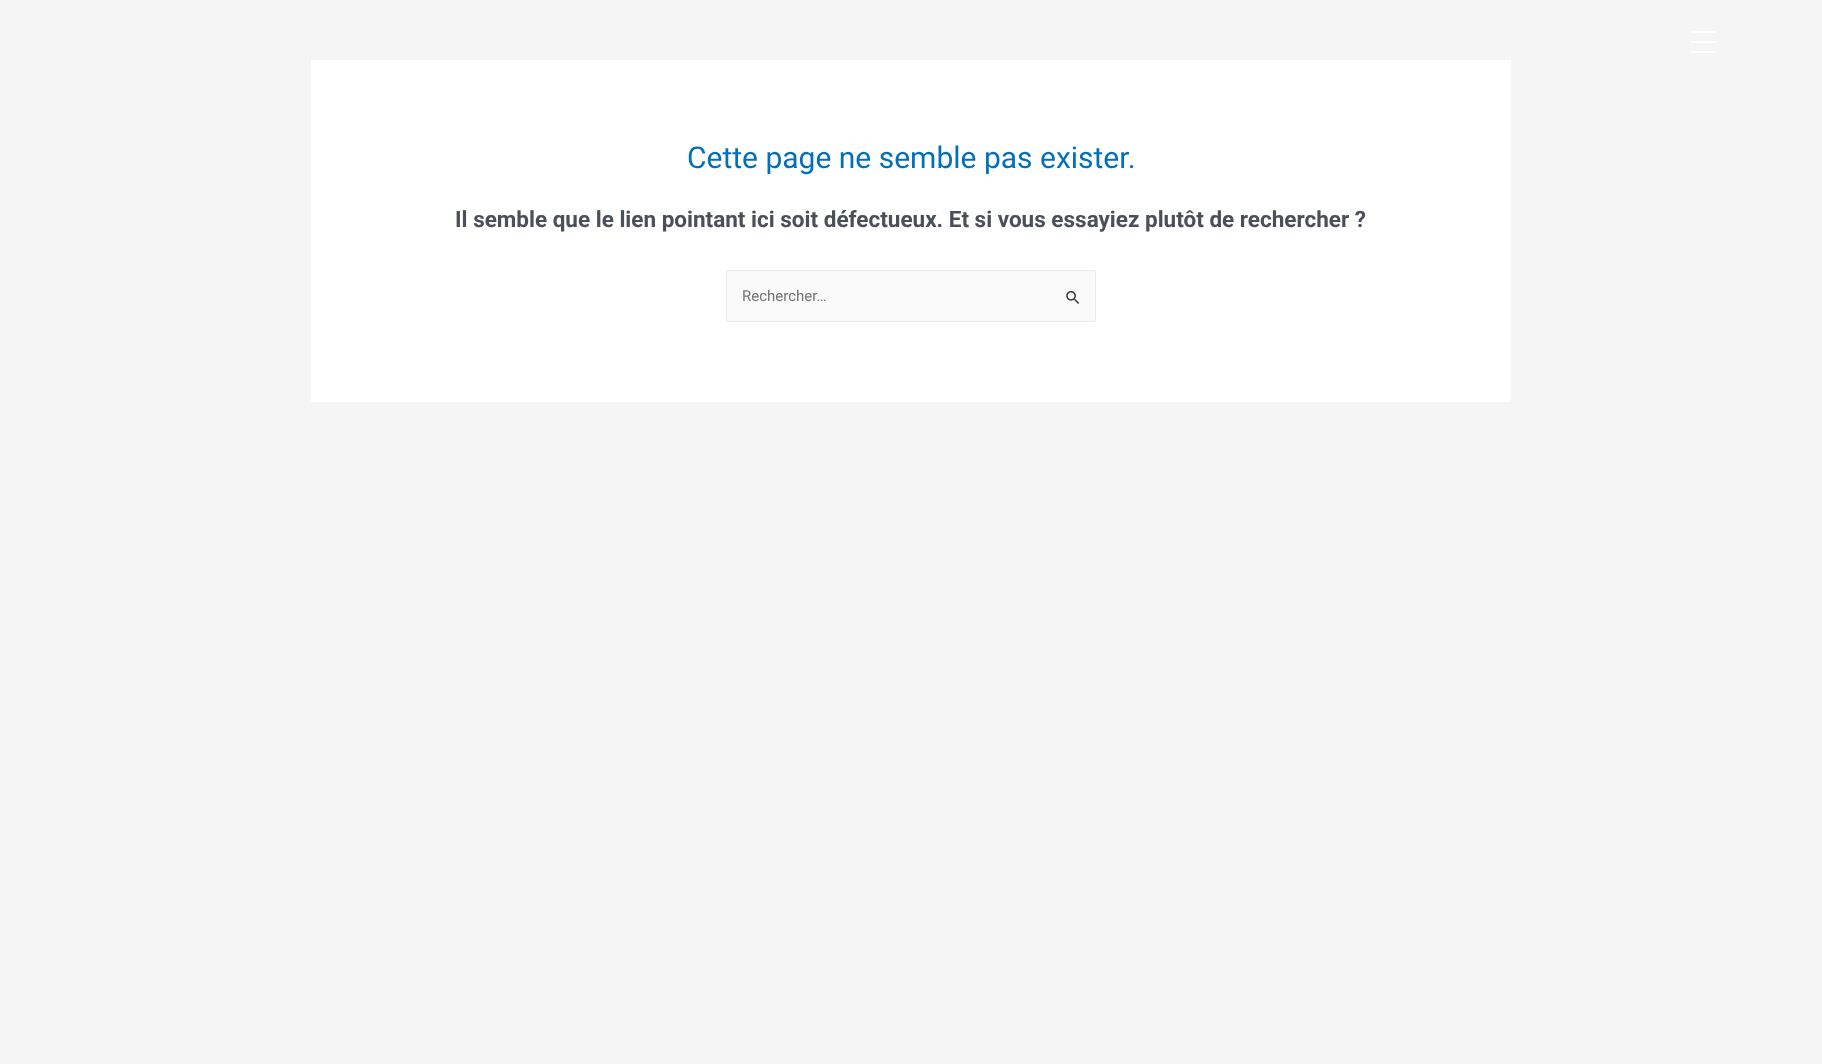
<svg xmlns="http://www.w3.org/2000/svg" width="1822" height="1064">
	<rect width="100%" height="100%" fill="#F5F5F5" />
	<rect x="1691" y="41" width="25" height="2" rx="1" fill="#FFFFFF" />
	<rect x="1691" y="31" width="25" height="2" rx="1" fill="#FFFFFF" />
	<rect x="1691" y="51" width="25" height="2" rx="1" fill="#FFFFFF" />
	<rect x="311" y="60" width="1200" height="342" fill="#FFFFFF" />
	<text x="687" y="168" font-family="Roboto" font-size="30" fill="#0170B9">Cette page ne semble pas exister.</text>
	<text x="455" y="227" font-family="Roboto" font-size="22.5" font-weight="700" fill="#4B4F58">Il semble que le lien pointant ici soit défectueux. Et si vous essayiez plutôt de rechercher ?</text>
	<rect x="726.5" y="270.5" width="369" height="51" rx="1.5" fill="#FAFAFA" stroke="#EAEAEA" />
	<text x="742" y="301" font-family="Roboto" font-size="15" fill="#757575">Rechercher…</text>
	<image x="1066" y="290" width="13" height="14" href="assets/img1.png" />
</svg>
